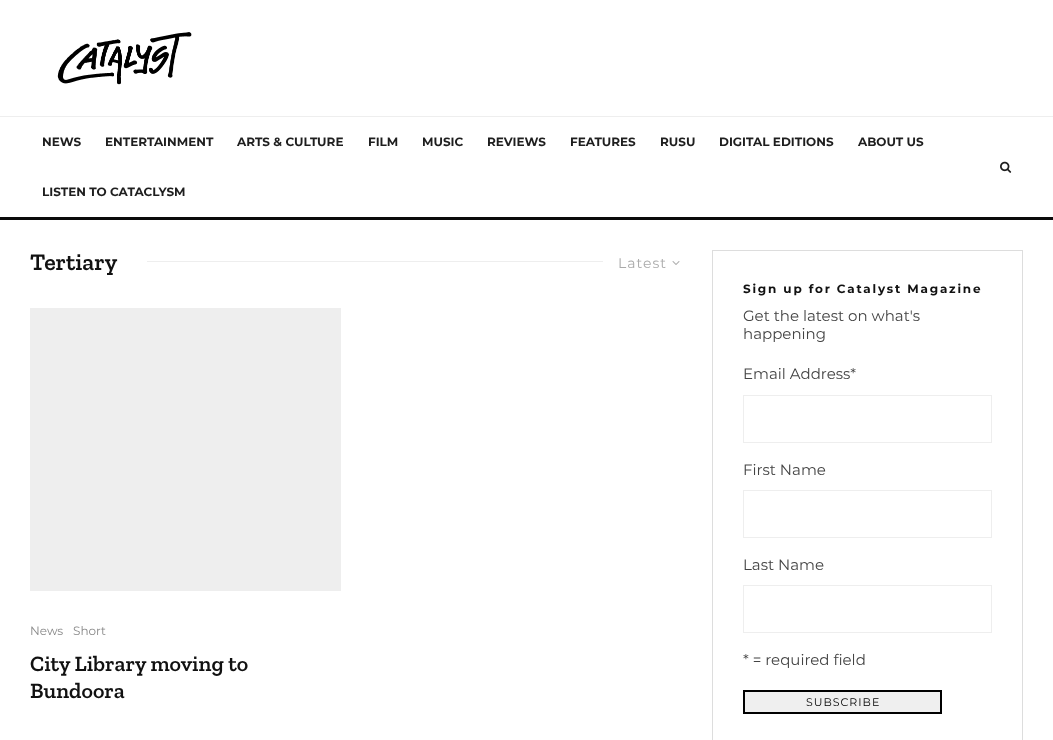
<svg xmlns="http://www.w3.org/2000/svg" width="1053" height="740">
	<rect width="100%" height="100%" fill="#FFFFFF" />
	<image x="57" y="32" width="135" height="53" href="assets/img1.png" />
	<rect x="0" y="116" width="1053" height="1" fill="#EEEEEE" />
	<rect x="0" y="217" width="1053" height="3" fill="#0A0A0A" />
	<g font-family="Montserrat" font-size="12" font-weight="700" fill="#1E1E1E">
		<text x="42" y="146">NEWS</text>
		<text x="105" y="146">ENTERTAINMENT</text>
		<text x="237" y="146">ARTS &amp; CULTURE</text>
		<text x="368" y="146">FILM</text>
		<text x="422" y="146">MUSIC</text>
		<text x="487" y="146">REVIEWS</text>
		<text x="570" y="146">FEATURES</text>
		<text x="660" y="146">RUSU</text>
		<text x="719" y="146">DIGITAL EDITIONS</text>
		<text x="858" y="146">ABOUT US</text>
		<text x="42" y="196">LISTEN TO CATACLYSM</text>
	</g>
	<image x="1000" y="161" width="12" height="12" href="assets/img2.png" />
	<text x="30" y="270" font-family="Zilla Slab" font-size="24" font-weight="600" fill="#111111">Tertiary</text>
	<rect x="147" y="261" width="456" height="1" fill="#EEEEEE" />
	<text x="618" y="268" font-family="Montserrat" font-size="14" letter-spacing="1" fill="#AAAAAA">Latest</text>
	<image x="672" y="261" width="8" height="4" href="assets/img3.png" />
	<rect x="30" y="308" width="311" height="283" fill="#EEEEEE" />
	<g font-family="Montserrat" font-size="12" fill="#888888">
		<text x="30" y="635">News</text>
		<text x="73" y="635">Short</text>
	</g>
	<g font-family="Zilla Slab" font-size="22" font-weight="600" fill="#111111">
		<text x="30" y="671">City Library moving to</text>
		<text x="30" y="698">Bundoora</text>
	</g>
	<rect x="712.5" y="250.5" width="310" height="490" fill="none" stroke="#DDDDDD" />
	<text x="743" y="293" font-family="Montserrat" font-size="12" font-weight="700" letter-spacing="1.8" fill="#111111">Sign up for Catalyst Magazine</text>
	<g font-family="Montserrat" font-size="15" fill="#444444">
		<text x="743" y="321">Get the latest on what's</text>
		<text x="743" y="339">happening</text>
		<text x="743" y="379">Email Address*</text>
	</g>
	<rect x="743.5" y="395.5" width="248" height="47" fill="none" stroke="#EEEEEE" />
	<text x="743" y="475" font-family="Montserrat" font-size="15" fill="#444444">First Name</text>
	<rect x="743.5" y="490.5" width="248" height="47" fill="none" stroke="#EEEEEE" />
	<text x="743" y="570" font-family="Montserrat" font-size="15" fill="#444444">Last Name</text>
	<rect x="743.5" y="585.5" width="248" height="47" fill="none" stroke="#EEEEEE" />
	<text x="743" y="665" font-family="Montserrat" font-size="15" fill="#444444">* = required field</text>
	<rect x="744" y="691" width="197" height="22" fill="#EFEFEF" stroke="#000000" stroke-width="2" />
	<text x="806" y="706" font-family="Montserrat" font-size="11" letter-spacing="1" fill="#000000">SUBSCRIBE</text>
</svg>
